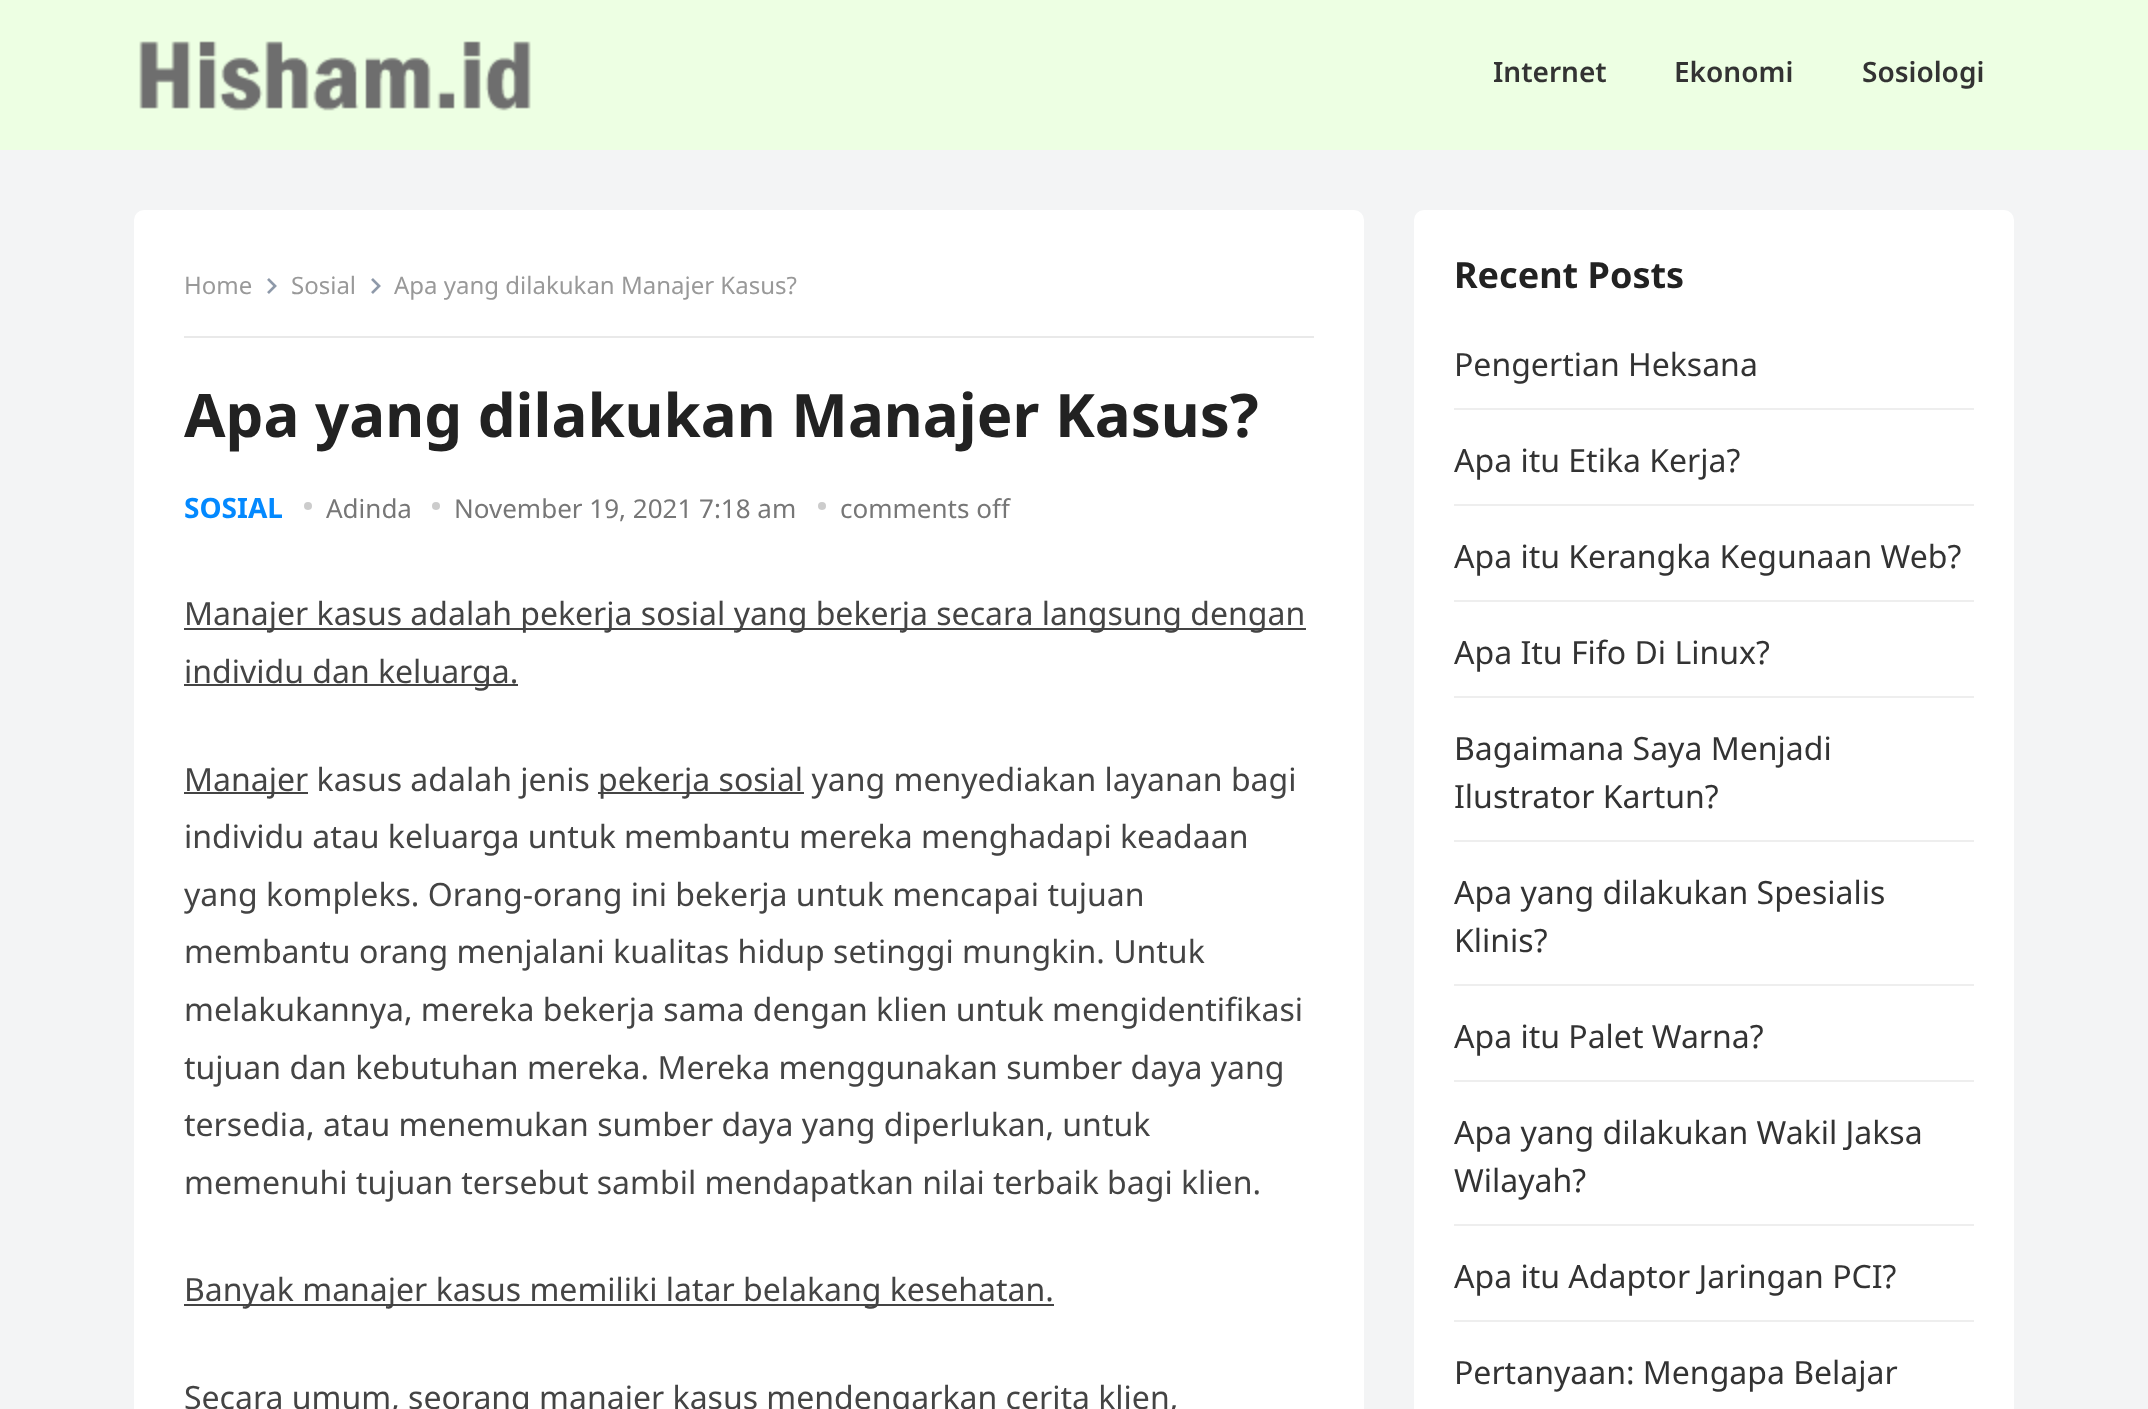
<svg xmlns="http://www.w3.org/2000/svg" width="2148" height="1409">
	<rect width="100%" height="100%" fill="#F3F4F5" />
	<rect x="0" y="0" width="2148" height="150" fill="#EDFFE3" />
	<image x="139" y="41" width="392" height="70" href="assets/img1.png" />
	<g font-family="Noto Sans" font-size="28" font-weight="600" fill="#333333">
		<text x="1493" y="82">Internet</text>
		<text x="1674" y="82">Ekonomi</text>
		<text x="1862" y="82">Sosiologi</text>
	</g>
	<rect x="134" y="210" width="1230" height="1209" rx="10" fill="#FFFFFF" />
	<rect x="184" y="336" width="1130" height="2" fill="#E9E9E9" />
	<text x="184" y="294" font-family="Noto Sans" font-size="24" fill="#999999">Home</text>
	<image x="267" y="278" width="10" height="16" href="assets/img2.png" />
	<text x="291" y="294" font-family="Noto Sans" font-size="24" fill="#999999">Sosial</text>
	<image x="371" y="278" width="10" height="16" href="assets/img2.png" />
	<text x="394" y="294" font-family="Noto Sans" font-size="24" fill="#999999">Apa yang dilakukan Manajer Kasus?</text>
	<text x="184" y="437" font-family="Noto Sans" font-size="60" font-weight="700" fill="#222222">Apa yang dilakukan Manajer Kasus?</text>
	<text x="184" y="518" font-family="Noto Sans" font-size="28" font-weight="700" fill="#0389FF">SOSIAL</text>
	<circle cx="308" cy="506" r="4" fill="#CCCCCC" />
	<text x="326" y="518" font-family="Noto Sans" font-size="26" fill="#777777">Adinda</text>
	<circle cx="436" cy="506" r="4" fill="#CCCCCC" />
	<text x="454" y="518" font-family="Noto Sans" font-size="26" fill="#777777">November 19, 2021 7:18 am</text>
	<circle cx="822" cy="506" r="4" fill="#CCCCCC" />
	<text x="840" y="518" font-family="Noto Sans" font-size="26" fill="#777777">comments off</text>
	<rect x="184" y="628" width="1122" height="2" fill="#444444" />
	<text x="184" y="625" font-family="Noto Sans" font-size="32" fill="#444444">Manajer kasus adalah pekerja sosial yang bekerja secara langsung dengan</text>
	<rect x="184" y="684" width="334" height="2" fill="#444444" />
	<text x="184" y="683" font-family="Noto Sans" font-size="32" fill="#444444">individu dan keluarga.</text>
	<rect x="184" y="792" width="124" height="2" fill="#444444" />
	<text x="184" y="791" font-family="Noto Sans" font-size="32" fill="#444444">Manajer kasus adalah jenis</text>
	<rect x="598" y="792" width="206" height="2" fill="#444444" />
	<g font-family="Noto Sans" font-size="32" fill="#444444">
		<text x="598" y="791">pekerja sosial yang menyediakan layanan bagi</text>
		<text x="184" y="848">individu atau keluarga untuk membantu mereka menghadapi keadaan</text>
		<text x="184" y="906">yang kompleks. Orang-orang ini bekerja untuk mencapai tujuan</text>
		<text x="184" y="963">membantu orang menjalani kualitas hidup setinggi mungkin. Untuk</text>
		<text x="184" y="1021">melakukannya, mereka bekerja sama dengan klien untuk mengidentifikasi</text>
		<text x="184" y="1079">tujuan dan kebutuhan mereka. Mereka menggunakan sumber daya yang</text>
		<text x="184" y="1136">tersedia, atau menemukan sumber daya yang diperlukan, untuk</text>
		<text x="184" y="1194">memenuhi tujuan tersebut sambil mendapatkan nilai terbaik bagi klien.</text>
	</g>
	<rect x="184" y="1304" width="870" height="2" fill="#444444" />
	<g font-family="Noto Sans" font-size="32" fill="#444444">
		<text x="184" y="1301">Banyak manajer kasus memiliki latar belakang kesehatan.</text>
		<text x="184" y="1409">Secara umum, seorang manajer kasus mendengarkan cerita klien,</text>
	</g>
	<rect x="1414" y="210" width="600" height="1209" rx="10" fill="#FFFFFF" />
	<text x="1454" y="288" font-family="Noto Sans" font-size="36" font-weight="700" fill="#222222">Recent Posts</text>
	<rect x="1454" y="408" width="520" height="2" fill="#EEEEEE" />
	<text x="1454" y="376" font-family="Noto Sans" font-size="32" fill="#333333">Pengertian Heksana</text>
	<rect x="1454" y="504" width="520" height="2" fill="#EEEEEE" />
	<text x="1454" y="472" font-family="Noto Sans" font-size="32" fill="#333333">Apa itu Etika Kerja?</text>
	<rect x="1454" y="600" width="520" height="2" fill="#EEEEEE" />
	<text x="1454" y="568" font-family="Noto Sans" font-size="32" fill="#333333">Apa itu Kerangka Kegunaan Web?</text>
	<rect x="1454" y="696" width="520" height="2" fill="#EEEEEE" />
	<text x="1454" y="664" font-family="Noto Sans" font-size="32" fill="#333333">Apa Itu Fifo Di Linux?</text>
	<rect x="1454" y="840" width="520" height="2" fill="#EEEEEE" />
	<g font-family="Noto Sans" font-size="32" fill="#333333">
		<text x="1454" y="760">Bagaimana Saya Menjadi</text>
		<text x="1454" y="808">Ilustrator Kartun?</text>
	</g>
	<rect x="1454" y="984" width="520" height="2" fill="#EEEEEE" />
	<g font-family="Noto Sans" font-size="32" fill="#333333">
		<text x="1454" y="904">Apa yang dilakukan Spesialis</text>
		<text x="1454" y="952">Klinis?</text>
	</g>
	<rect x="1454" y="1080" width="520" height="2" fill="#EEEEEE" />
	<text x="1454" y="1048" font-family="Noto Sans" font-size="32" fill="#333333">Apa itu Palet Warna?</text>
	<rect x="1454" y="1224" width="520" height="2" fill="#EEEEEE" />
	<g font-family="Noto Sans" font-size="32" fill="#333333">
		<text x="1454" y="1144">Apa yang dilakukan Wakil Jaksa</text>
		<text x="1454" y="1192">Wilayah?</text>
	</g>
	<rect x="1454" y="1320" width="520" height="2" fill="#EEEEEE" />
	<g font-family="Noto Sans" font-size="32" fill="#333333">
		<text x="1454" y="1288">Apa itu Adaptor Jaringan PCI?</text>
		<text x="1454" y="1384">Pertanyaan: Mengapa Belajar</text>
	</g>
</svg>
